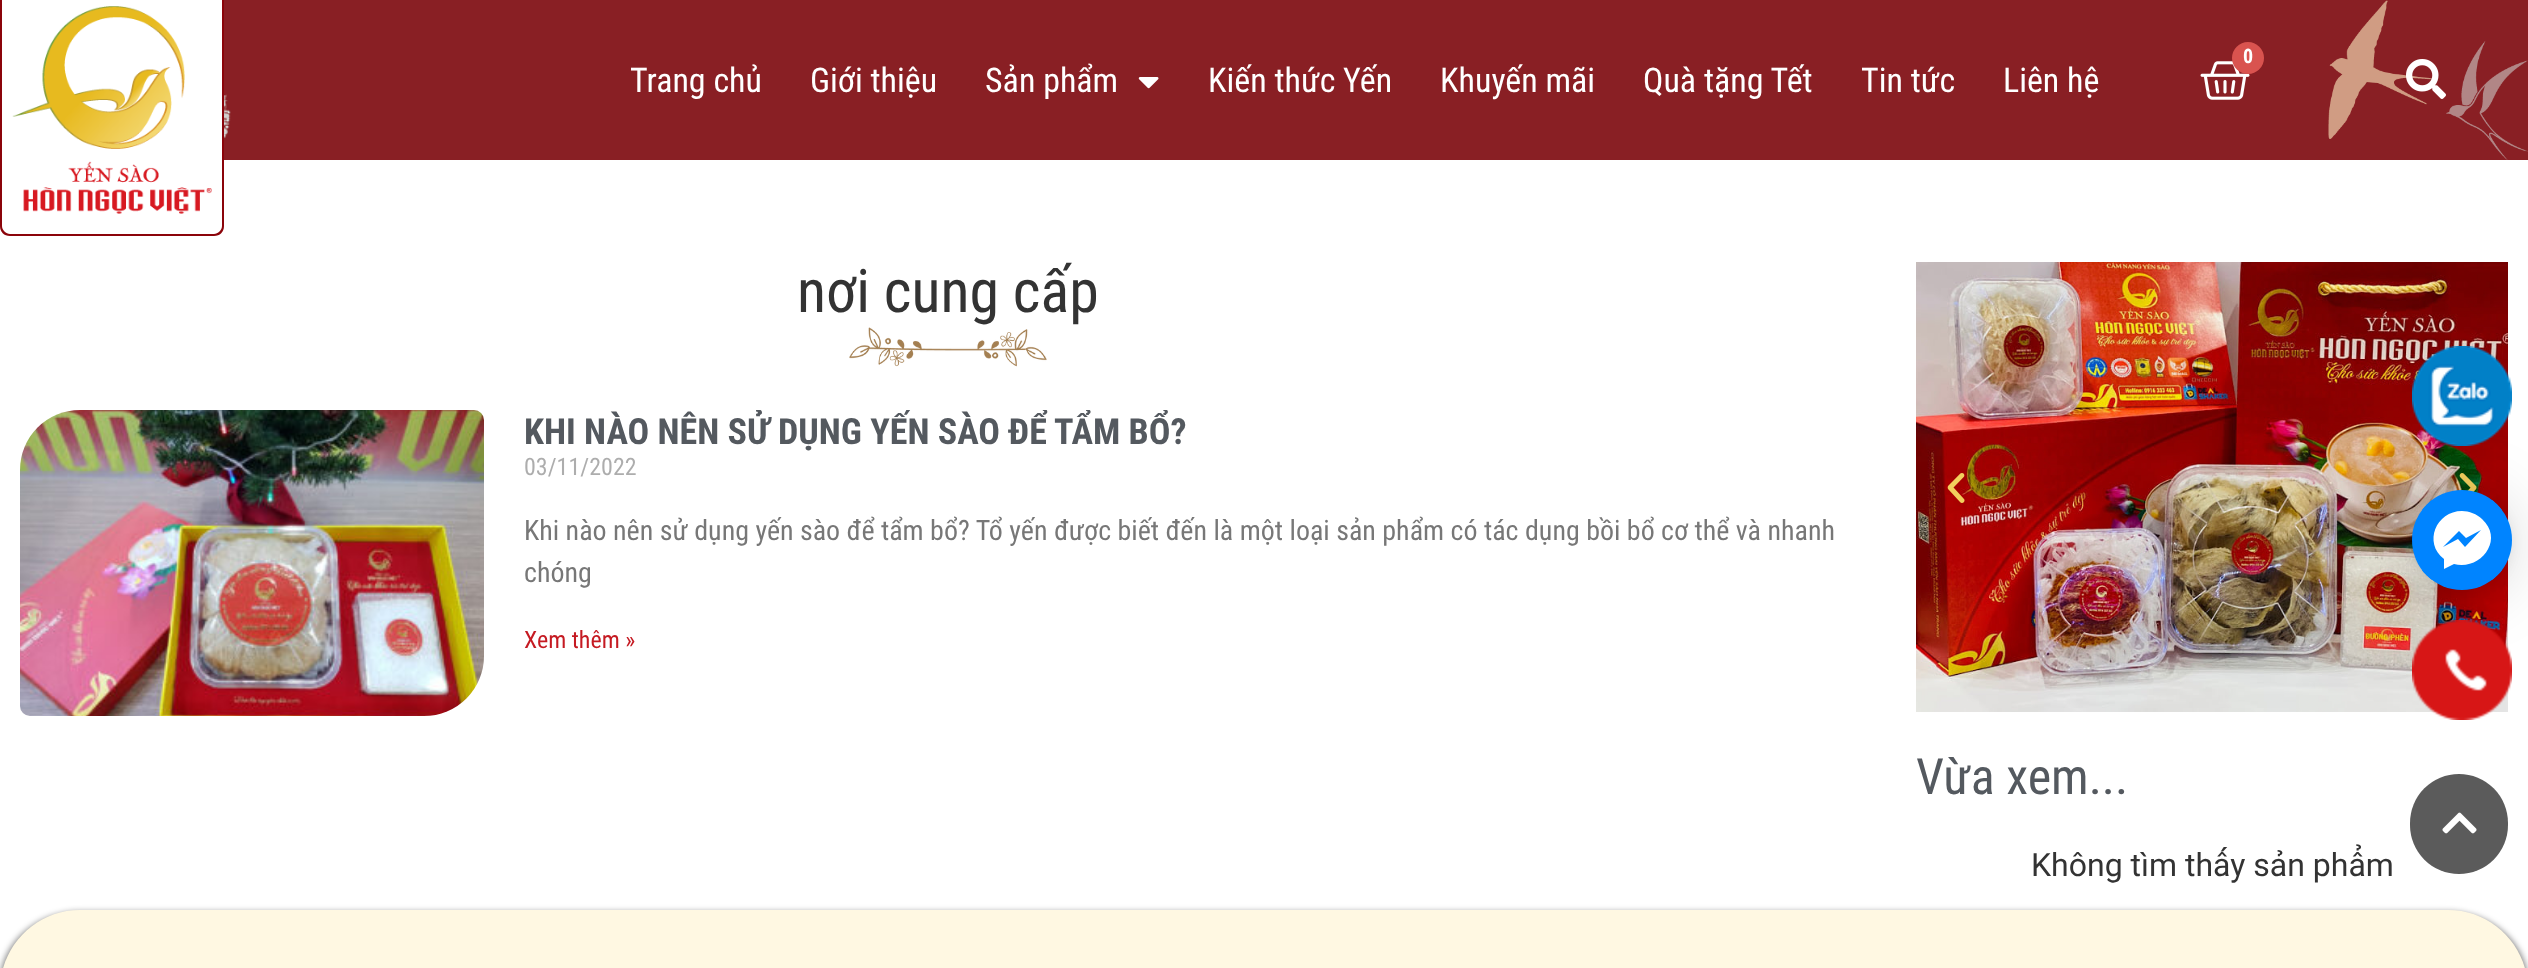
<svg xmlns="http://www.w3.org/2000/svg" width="2528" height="968">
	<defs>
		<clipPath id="clip1"><rect x="20" y="410" width="1856" height="306" /></clipPath>
		<clipPath id="clip2"><rect x="2412" y="490" width="100" height="100" rx="50" /></clipPath>
	</defs>
	<rect width="100%" height="100%" fill="#FFFFFF" />
	<rect x="224" y="0" width="2304" height="160" fill="#891F24" />
	<image x="224" y="94" width="7" height="45" href="assets/img1.png" />
	<path d="M0 0H224V226C224 232 220 236 214 236H10C4 236 0 232 0 226ZM2 0H222V226C222 230 218 234 214 234H10C6 234 2 230 2 226Z" fill="#8B040A" fill-rule="evenodd" />
	<image x="12" y="6" width="200" height="208" href="assets/img2.png" />
	<image x="2200" y="61" width="50" height="39" href="assets/img3.png" />
	<circle cx="2248" cy="58" r="16" fill="#D9534F" />
	<text x="2243" y="63" font-family="Roboto Condensed" font-size="20" font-weight="700" fill="#FFFFFF">0</text>
	<g font-family="Roboto Condensed" font-size="34" fill="#FFFFFF">
		<text x="630" y="92">Trang chủ</text>
		<text x="810" y="92">Giới thiệu</text>
		<text x="985" y="92">Sản phẩm</text>
	</g>
	<image x="1138" y="77" width="21" height="12" href="assets/img4.png" />
	<g font-family="Roboto Condensed" font-size="34" fill="#FFFFFF">
		<text x="1208" y="92">Kiến thức Yến</text>
		<text x="1440" y="92">Khuyến mãi</text>
		<text x="1643" y="92">Quà tặng Tết</text>
		<text x="1861" y="92">Tin tức</text>
		<text x="2003" y="92">Liên hệ</text>
	</g>
	<image x="2328" y="0" width="200" height="160" href="assets/img6.png" />
	<image x="2406" y="59" width="40" height="40" href="assets/img5.png" />
	<rect x="2410" y="774" width="98" height="100" rx="49" fill="#5B5B5B" />
	<image x="2442" y="812" width="35" height="22" href="assets/img7.png" />
	<text x="797" y="312" font-family="Roboto Condensed" font-size="60" fill="#333333">nơi cung cấp</text>
	<image x="849" y="327" width="198" height="40" href="assets/img8.png" />
	<image x="20" y="410" width="464" height="306" href="assets/img9.png" />
	<g clip-path="url(#clip1)">
		<text x="524" y="444" font-family="Roboto Condensed" font-size="36" font-weight="700" fill="#54595F">KHI NÀO NÊN SỬ DỤNG YẾN SÀO ĐỂ TẨM BỔ?</text>
	</g>
	<text x="524" y="475" font-family="Roboto Condensed" font-size="24" fill="#ADADAD">03/11/2022</text>
	<g font-family="Roboto Condensed" font-size="28" fill="#777777">
		<text x="524" y="540">Khi nào nên sử dụng yến sào để tẩm bổ? Tổ yến được biết đến là một loại sản phẩm có tác dụng bồi bổ cơ thể và nhanh</text>
		<text x="524" y="582">chóng</text>
	</g>
	<text x="524" y="648" font-family="Roboto Condensed" font-size="24" fill="#C51A22">Xem thêm »</text>
	<image x="1916" y="262" width="592" height="450" href="assets/img10.png" />
	<image x="1947" y="473" width="18" height="30" href="assets/img11.png" />
	<image x="2459" y="473" width="18" height="19" href="assets/img12.png" />
	<text x="1916" y="794" font-family="Roboto Condensed" font-size="50" fill="#54595F">Vừa xem...</text>
	<text x="2031" y="876" font-family="Roboto" font-size="32" fill="#333333">Không tìm thấy sản phẩm</text>
	<rect x="2412" y="494" width="100" height="100" rx="50" fill="#000000" fill-opacity="0.16" filter="blur(32px)" />
	<image x="2412" y="346" width="100" height="100" href="assets/img13.png" />
	<rect x="2412" y="492" width="100" height="100" rx="50" fill="#000000" fill-opacity="0.06" filter="blur(6px)" />
	<circle cx="2462" cy="540" r="50" fill="#0084FF" />
	<g clip-path="url(#clip2)">
		<rect x="2422" y="500" width="80" height="80" fill="#0084FF" />
	</g>
	<path d="M2462 511C2436 511 2423 543 2444 559V569L2454 564C2480 571 2505 540 2482 519C2477 514 2469 511 2462 511ZM2465 547L2458 539L2443 547L2459 531L2466 538L2481 530Z" fill="#FFFFFF" />
	<image x="2412" y="620" width="100" height="100" href="assets/img14.png" />
	<rect x="0" y="912" width="2528" height="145" rx="80" fill="#000000" fill-opacity="0.5" filter="blur(3px)" />
	<path d="M80 910H2448C2492 910 2528 946 2528 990V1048H0V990C0 946 36 910 80 910Z" fill="#FFF8E2" />
</svg>
